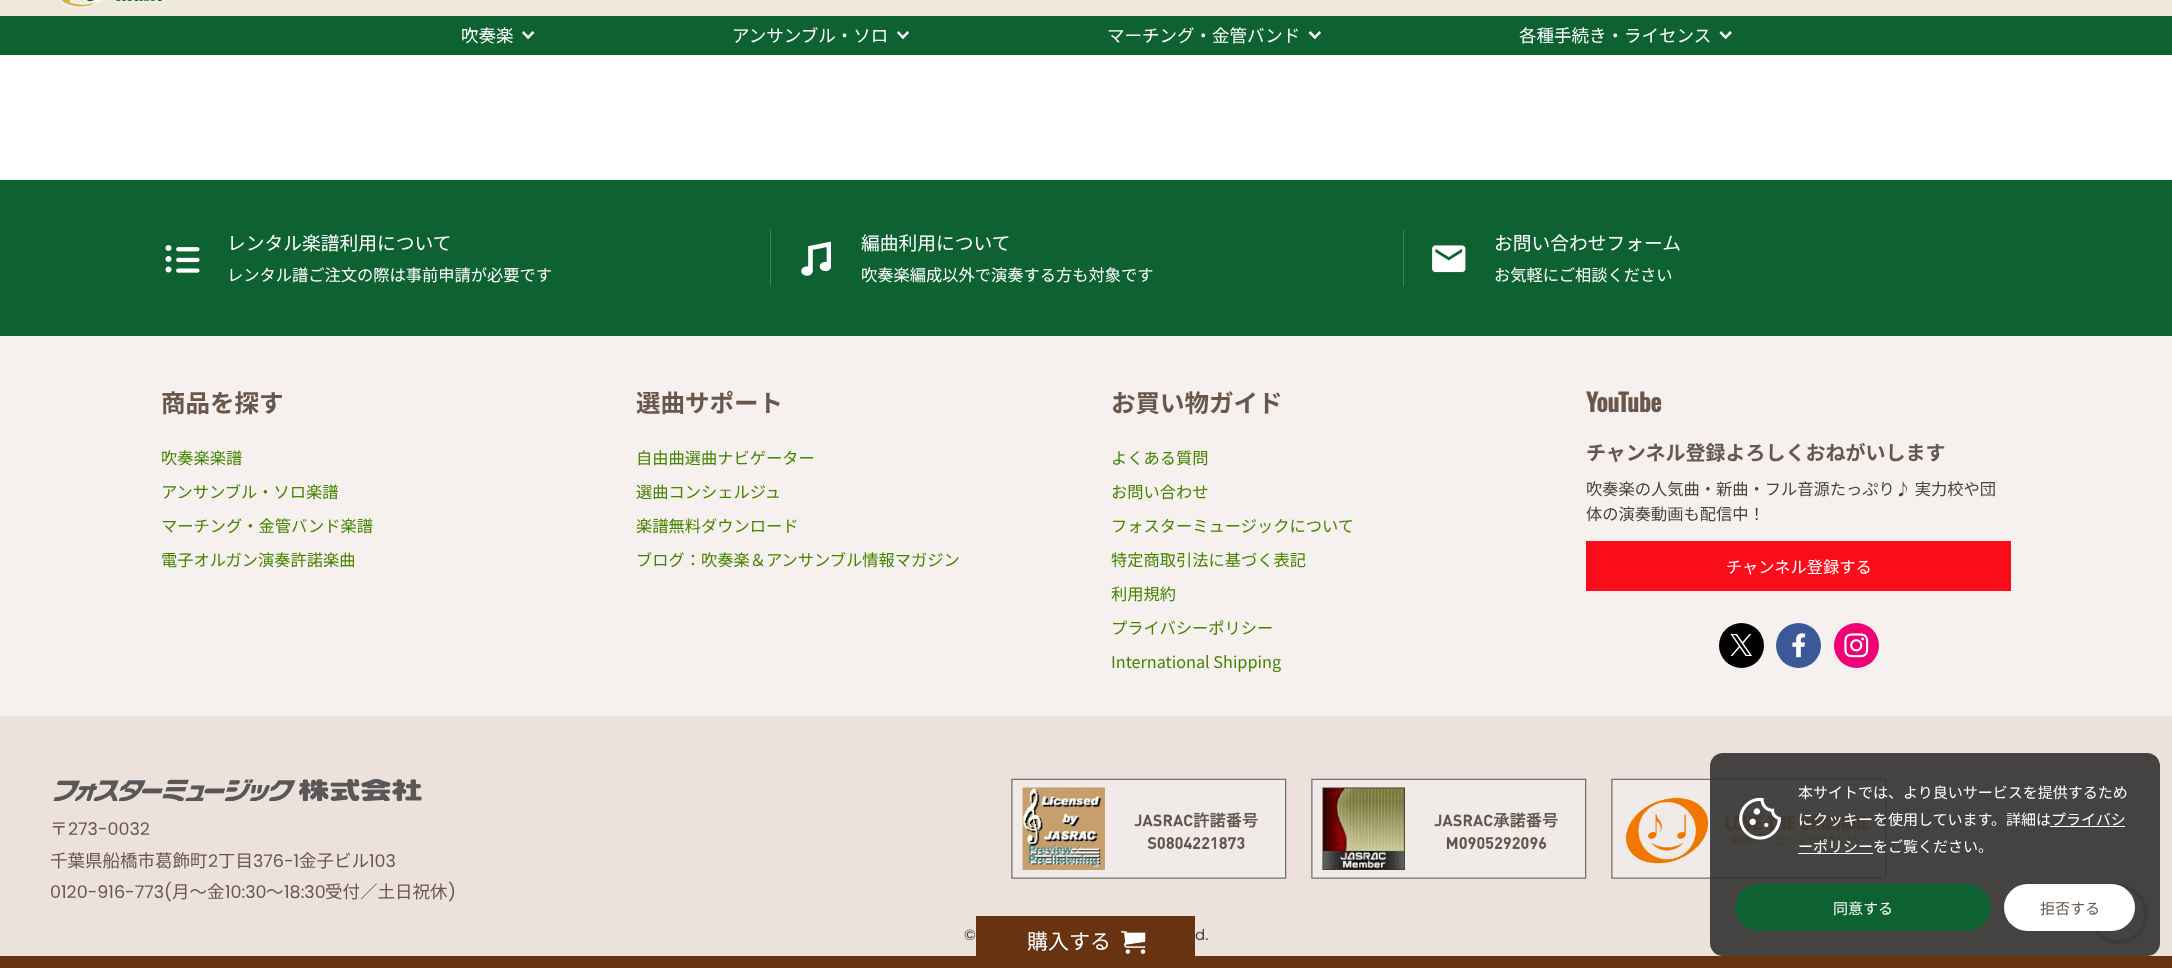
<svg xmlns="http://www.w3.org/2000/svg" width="2172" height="968">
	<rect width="100%" height="100%" fill="#FFFFFF" />
	<rect x="0" y="0" width="2172" height="16" fill="#EEE8DD" />
	<image x="59" y="0" width="106" height="9" href="assets/img1.png" />
	<rect x="0" y="16" width="2172" height="39" fill="#0E6232" />
	<text x="461" y="42" font-family="Noto Sans JP" font-size="17.5" fill="#FFFFFF">吹奏楽</text>
	<path d="M532.5 31L534.5 33L528 39L526.5 37.5Z" fill="#FFFFFF" />
	<path d="M523.5 31L530 37.5L528 39L522 33Z" fill="#FFFFFF" />
	<text x="732" y="42" font-family="Noto Sans JP" font-size="17.5" fill="#FFFFFF">アンサンブル・ソロ</text>
	<path d="M907.5 31L909 33L903 39L901 37.5Z" fill="#FFFFFF" />
	<path d="M898.5 31L904.5 37.5L903 39L897 33Z" fill="#FFFFFF" />
	<text x="1107" y="42" font-family="Noto Sans JP" font-size="17.5" fill="#FFFFFF">マーチング・金管バンド</text>
	<path d="M1319.5 31L1321 33L1315 39L1313 37.5Z" fill="#FFFFFF" />
	<path d="M1310.5 31L1316.5 37.5L1315 39L1308.5 33Z" fill="#FFFFFF" />
	<text x="1519" y="42" font-family="Noto Sans JP" font-size="17.5" fill="#FFFFFF">各種手続き・ライセンス</text>
	<path d="M1730 31L1732 33L1725.5 39L1724 37.5Z" fill="#FFFFFF" />
	<path d="M1721 31L1727.5 37.5L1725.5 39L1719.5 33Z" fill="#FFFFFF" />
	<rect x="0" y="956" width="2172" height="12" fill="#683310" />
	<rect x="0" y="716" width="2172" height="240" fill="#ECE2DB" />
	<rect x="976" y="916" width="219" height="40" fill="#683310" />
	<text x="1027" y="949" font-family="Noto Sans JP" font-size="21" fill="#FFFFFF">購入する</text>
	<image x="1121" y="931" width="25" height="23" href="assets/img2.png" />
	<rect x="0" y="336" width="2172" height="380" fill="#F6F1EE" />
	<rect x="0" y="180" width="2172" height="156" fill="#0E6232" />
	<image x="165" y="245" width="35" height="28" href="assets/img3.png" />
	<text x="227" y="250" font-family="Noto Sans JP" font-size="18.75" fill="#FFFFFF">レンタル楽譜利用について</text>
	<text x="227" y="281" font-family="Noto Sans JP" font-size="16.25" fill="#FFFFFF">レンタル譜ご注文の際は事前申請が必要です</text>
	<rect x="770" y="230" width="1" height="56" fill="#3E815B" />
	<image x="801" y="241" width="30" height="35" href="assets/img4.png" />
	<text x="861" y="250" font-family="Noto Sans JP" font-size="18.75" fill="#FFFFFF">編曲利用について</text>
	<text x="861" y="281" font-family="Noto Sans JP" font-size="16.25" fill="#FFFFFF">吹奏楽編成以外で演奏する方も対象です</text>
	<rect x="1403" y="230" width="1" height="56" fill="#3E815B" />
	<image x="1432" y="245" width="34" height="28" href="assets/img5.png" />
	<text x="1494" y="250" font-family="Noto Sans JP" font-size="18.75" fill="#FFFFFF">お問い合わせフォーム</text>
	<text x="1494" y="281" font-family="Noto Sans JP" font-size="16.25" fill="#FFFFFF">お気軽にご相談ください</text>
	<text x="161" y="412" font-family="Noto Sans JP" font-size="24.5" font-weight="700" fill="#68574A">商品を探す</text>
	<g font-family="Noto Sans JP" font-size="16.25" fill="#458400">
		<text x="161" y="464">吹奏楽楽譜</text>
		<text x="161" y="498">アンサンブル・ソロ楽譜</text>
		<text x="161" y="532">マーチング・金管バンド楽譜</text>
		<text x="161" y="566">電子オルガン演奏許諾楽曲</text>
	</g>
	<text x="636" y="412" font-family="Noto Sans JP" font-size="24.5" font-weight="700" fill="#68574A">選曲サポート</text>
	<g font-family="Noto Sans JP" font-size="16.25" fill="#458400">
		<text x="636" y="464">自由曲選曲ナビゲーター</text>
		<text x="636" y="498">選曲コンシェルジュ</text>
		<text x="636" y="532">楽譜無料ダウンロード</text>
		<text x="636" y="566">ブログ：吹奏楽＆アンサンブル情報マガジン</text>
	</g>
	<text x="1111" y="412" font-family="Noto Sans JP" font-size="24.5" font-weight="700" fill="#68574A">お買い物ガイド</text>
	<g font-family="Noto Sans JP" font-size="16.25" fill="#458400">
		<text x="1111" y="464">よくある質問</text>
		<text x="1111" y="498">お問い合わせ</text>
		<text x="1111" y="532">フォスターミュージックについて</text>
		<text x="1111" y="566">特定商取引法に基づく表記</text>
		<text x="1111" y="600">利用規約</text>
		<text x="1111" y="634">プライバシーポリシー</text>
		<text x="1111" y="668">International Shipping</text>
	</g>
	<text x="1586" y="412" font-family="Oswald" font-size="24.5" font-weight="700" fill="#68574A">YouTube</text>
	<text x="1586" y="460" font-family="Noto Sans JP" font-size="20" font-weight="700" fill="#68574A">チャンネル登録よろしくおねがいします</text>
	<g font-family="Noto Sans JP" font-size="16.25" fill="#464637">
		<text x="1586" y="495">吹奏楽の人気曲・新曲・フル音源たっぷり♪ 実力校や団</text>
		<text x="1586" y="520">体の演奏動画も配信中！</text>
	</g>
	<rect x="1586" y="541" width="425" height="50" fill="#FA0D1A" />
	<text x="1726" y="573" font-family="Noto Sans JP" font-size="16.25" fill="#FFFFFF">チャンネル登録する</text>
	<circle cx="1741.5" cy="645.5" r="22.5" fill="#000000" />
	<image x="1730" y="634" width="22" height="22" href="assets/img6.png" />
	<circle cx="1798.5" cy="645.5" r="22.5" fill="#3B5999" />
	<image x="1792" y="633" width="14" height="25" href="assets/img7.png" />
	<circle cx="1856.5" cy="645.5" r="22.5" fill="#F00075" />
	<image x="1844" y="633" width="25" height="25" href="assets/img8.png" />
	<image x="53" y="779" width="369" height="22" href="assets/img9.png" />
	<text x="50" y="835" font-family="Noto Sans JP" font-size="17.5" fill="#68574A">〒</text>
	<text x="68" y="835" font-family="Poppins" font-size="17.5" fill="#68574A">273-0032</text>
	<text x="50" y="867" font-family="Noto Sans JP" font-size="17.5" fill="#68574A">千葉県船橋市葛飾町</text>
	<text x="208" y="867" font-family="Poppins" font-size="17.5" fill="#68574A">2</text>
	<text x="218" y="867" font-family="Noto Sans JP" font-size="17.5" fill="#68574A">丁目</text>
	<text x="253" y="867" font-family="Poppins" font-size="17.5" fill="#68574A">376-1</text>
	<text x="299" y="867" font-family="Noto Sans JP" font-size="17.5" fill="#68574A">金子ビル</text>
	<g font-family="Poppins" font-size="17.5" fill="#68574A">
		<text x="369" y="867">103</text>
		<text x="50" y="898">0120-916-773(</text>
	</g>
	<text x="172" y="898" font-family="Noto Sans JP" font-size="17.5" fill="#68574A">月〜金</text>
	<text x="225" y="898" font-family="Poppins" font-size="17.5" fill="#68574A">10:30</text>
	<text x="266" y="898" font-family="Noto Sans JP" font-size="17.5" fill="#68574A">〜</text>
	<text x="284" y="898" font-family="Poppins" font-size="17.5" fill="#68574A">18:30</text>
	<text x="325" y="898" font-family="Noto Sans JP" font-size="17.5" fill="#68574A">受付／土日祝休</text>
	<text x="448" y="898" font-family="Poppins" font-size="17.5" fill="#68574A">)</text>
	<image x="1011" y="778" width="276" height="101" href="assets/img10.png" />
	<image x="1311" y="778" width="276" height="101" href="assets/img11.png" />
	<image x="1611" y="778" width="276" height="101" href="assets/img12.png" />
	<g font-family="Poppins" font-size="15" fill="#464637">
		<text x="964" y="940">©</text>
		<text x="1195" y="940">d.</text>
	</g>
	<circle cx="2118" cy="914" r="28" fill="none" stroke="#999999" stroke-width="4" />
	<image x="2130" y="920" width="1" height="1" href="assets/img14.png" />
	<rect x="1710" y="753" width="450" height="203" rx="13" fill="#333333" fill-opacity="0.91" />
	<image x="1739" y="797" width="42" height="43" href="assets/img13.png" />
	<g font-family="Noto Sans JP" font-size="15" fill="#FFFFFF">
		<text x="1798" y="798">本サイトでは、より良いサービスを提供するため</text>
		<text x="1798" y="825">にクッキーを使用しています。詳細はプライバシ</text>
	</g>
	<rect x="1798" y="853" width="75" height="1" fill="#FFFFFF" />
	<text x="1798" y="852" font-family="Noto Sans JP" font-size="15" fill="#FFFFFF">ーポリシーをご覧ください。</text>
	<rect x="2050" y="826" width="75" height="1" fill="#FFFFFF" />
	<rect x="1735" y="884" width="256" height="47" rx="23.5" fill="#0E6232" />
	<text x="1833" y="914" font-family="Noto Sans JP" font-size="15" fill="#FFFFFF">同意する</text>
	<rect x="2004" y="884" width="131" height="47" rx="23.5" fill="#FFFFFF" />
	<text x="2040" y="914" font-family="Noto Sans JP" font-size="15" fill="#68574A">拒否する</text>
</svg>
